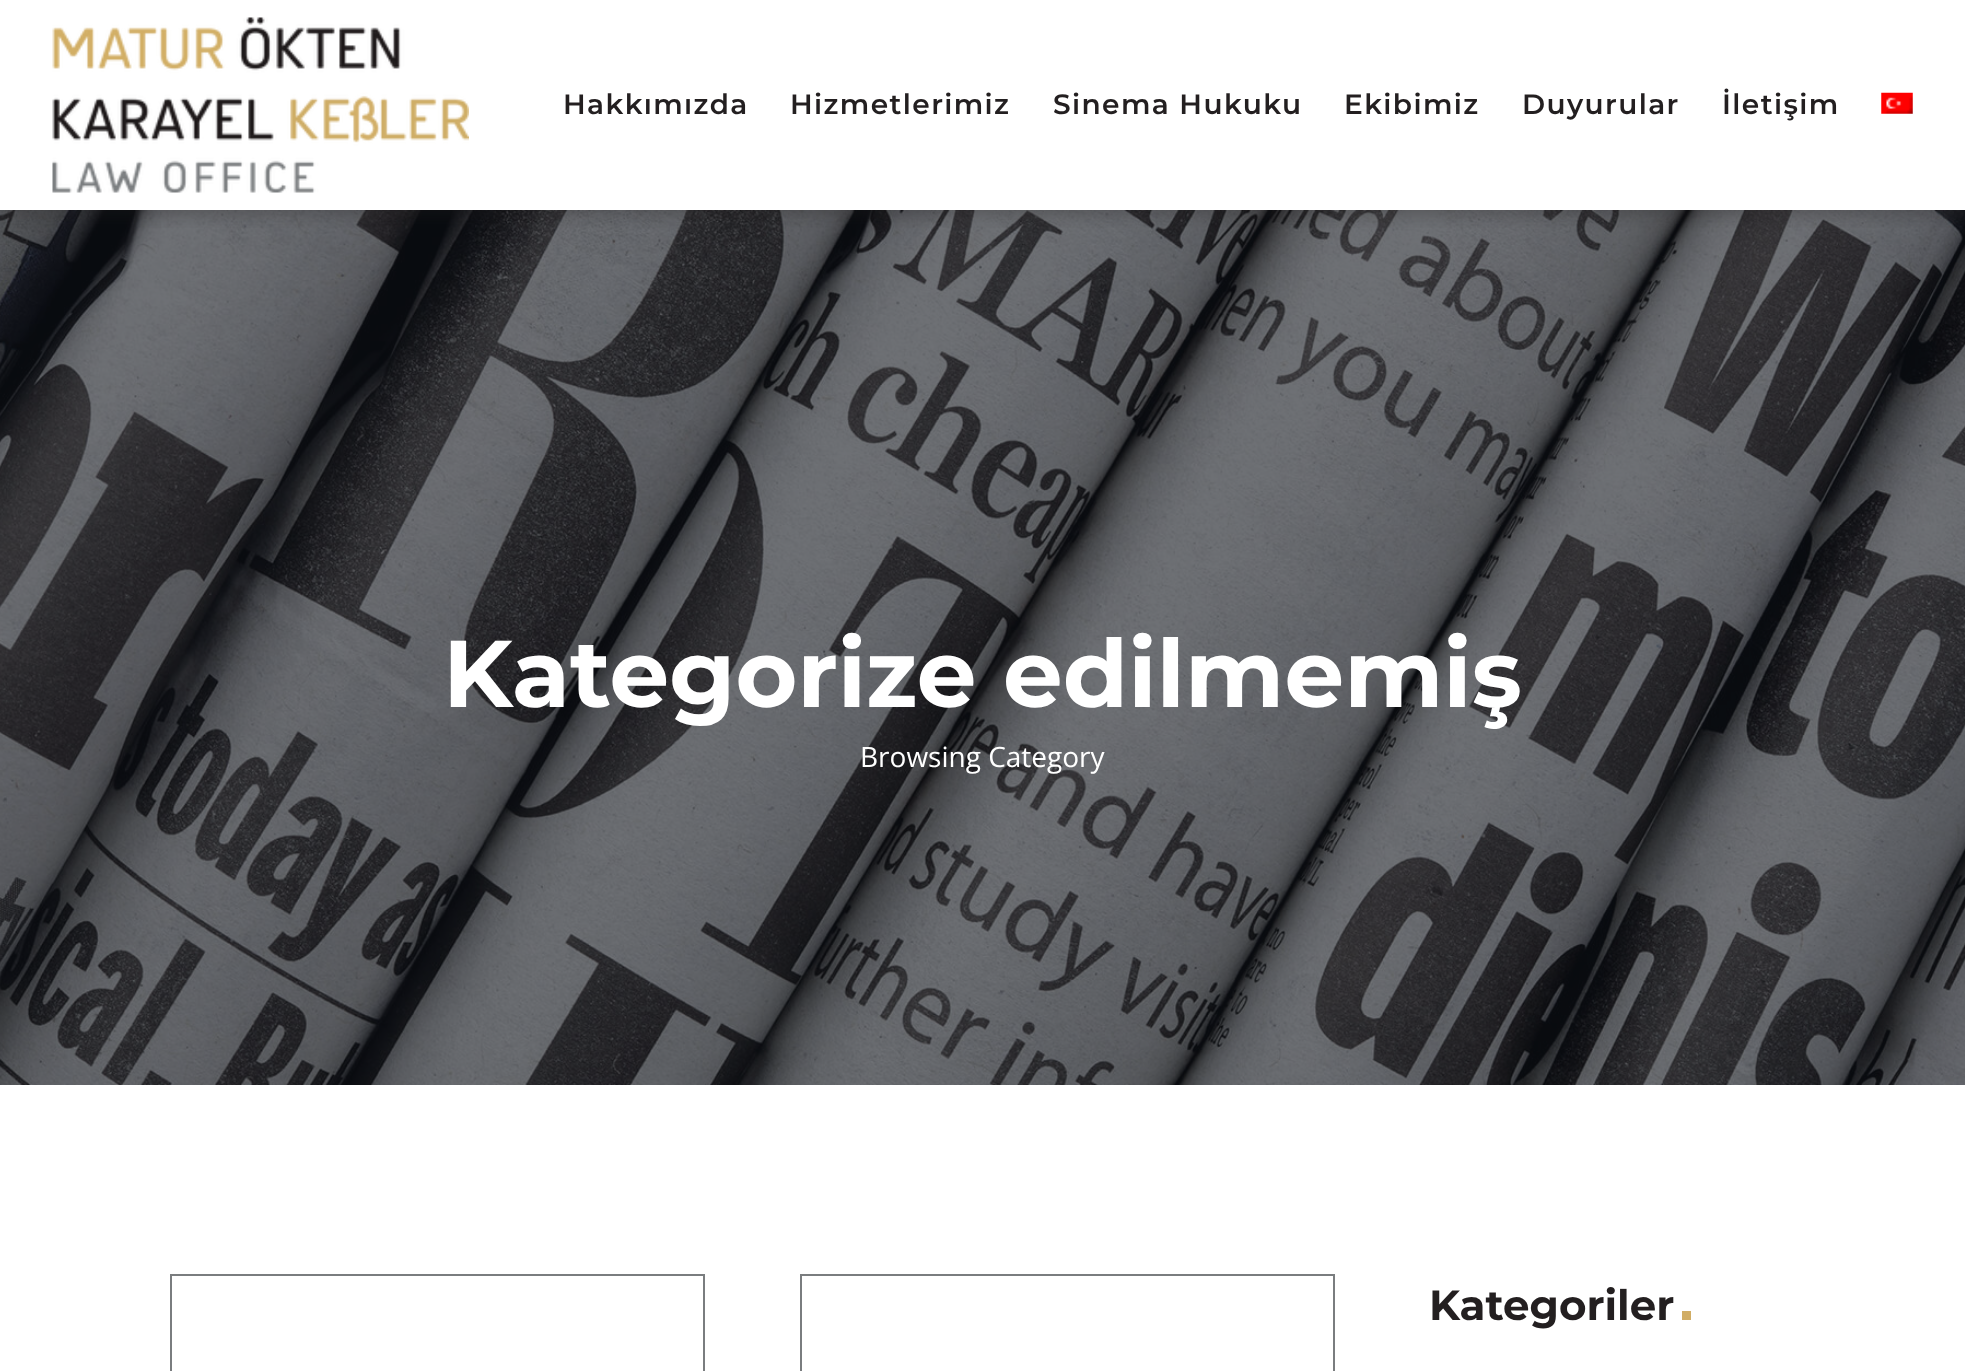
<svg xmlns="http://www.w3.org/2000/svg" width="1965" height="1371">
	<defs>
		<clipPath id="clip1"><rect x="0" y="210" width="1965" height="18" /></clipPath>
	</defs>
	<rect width="100%" height="100%" fill="#FFFFFF" />
	<image x="0" y="210" width="1965" height="875" href="assets/img3.png" />
	<g clip-path="url(#clip1)">
		<rect x="0" y="4" width="1965" height="210" fill="#231F20" fill-opacity="0.35" filter="blur(9px)" />
	</g>
	<image x="52" y="17" width="417" height="176" href="assets/img1.png" />
	<g font-family="Montserrat" font-size="28" font-weight="600" letter-spacing="1.4" fill="#231F20">
		<text x="563" y="114">Hakkımızda</text>
		<text x="790" y="114">Hizmetlerimiz</text>
		<text x="1053" y="114">Sinema Hukuku</text>
		<text x="1344" y="114">Ekibimiz</text>
		<text x="1522" y="114">Duyurular</text>
		<text x="1722" y="114">İletişim</text>
	</g>
	<image x="1881" y="92" width="32" height="22" href="assets/img2.png" />
	<text x="443" y="707" font-family="Montserrat" font-size="94.5" font-weight="700" fill="#FFFFFF">Kategorize edilmemiş</text>
	<text x="860" y="767" font-family="Open Sans" font-size="28" fill="#FFFFFF">Browsing Category</text>
	<rect x="171" y="1275" width="533" height="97" fill="none" stroke="#7A7D7F" stroke-width="2" />
	<rect x="801" y="1275" width="533" height="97" fill="none" stroke="#7A7D7F" stroke-width="2" />
	<text x="1429" y="1320" font-family="Montserrat" font-size="42" font-weight="700" fill="#231F20">Kategoriler</text>
	<rect x="1682" y="1311" width="9" height="9" fill="#D1AD65" />
</svg>
